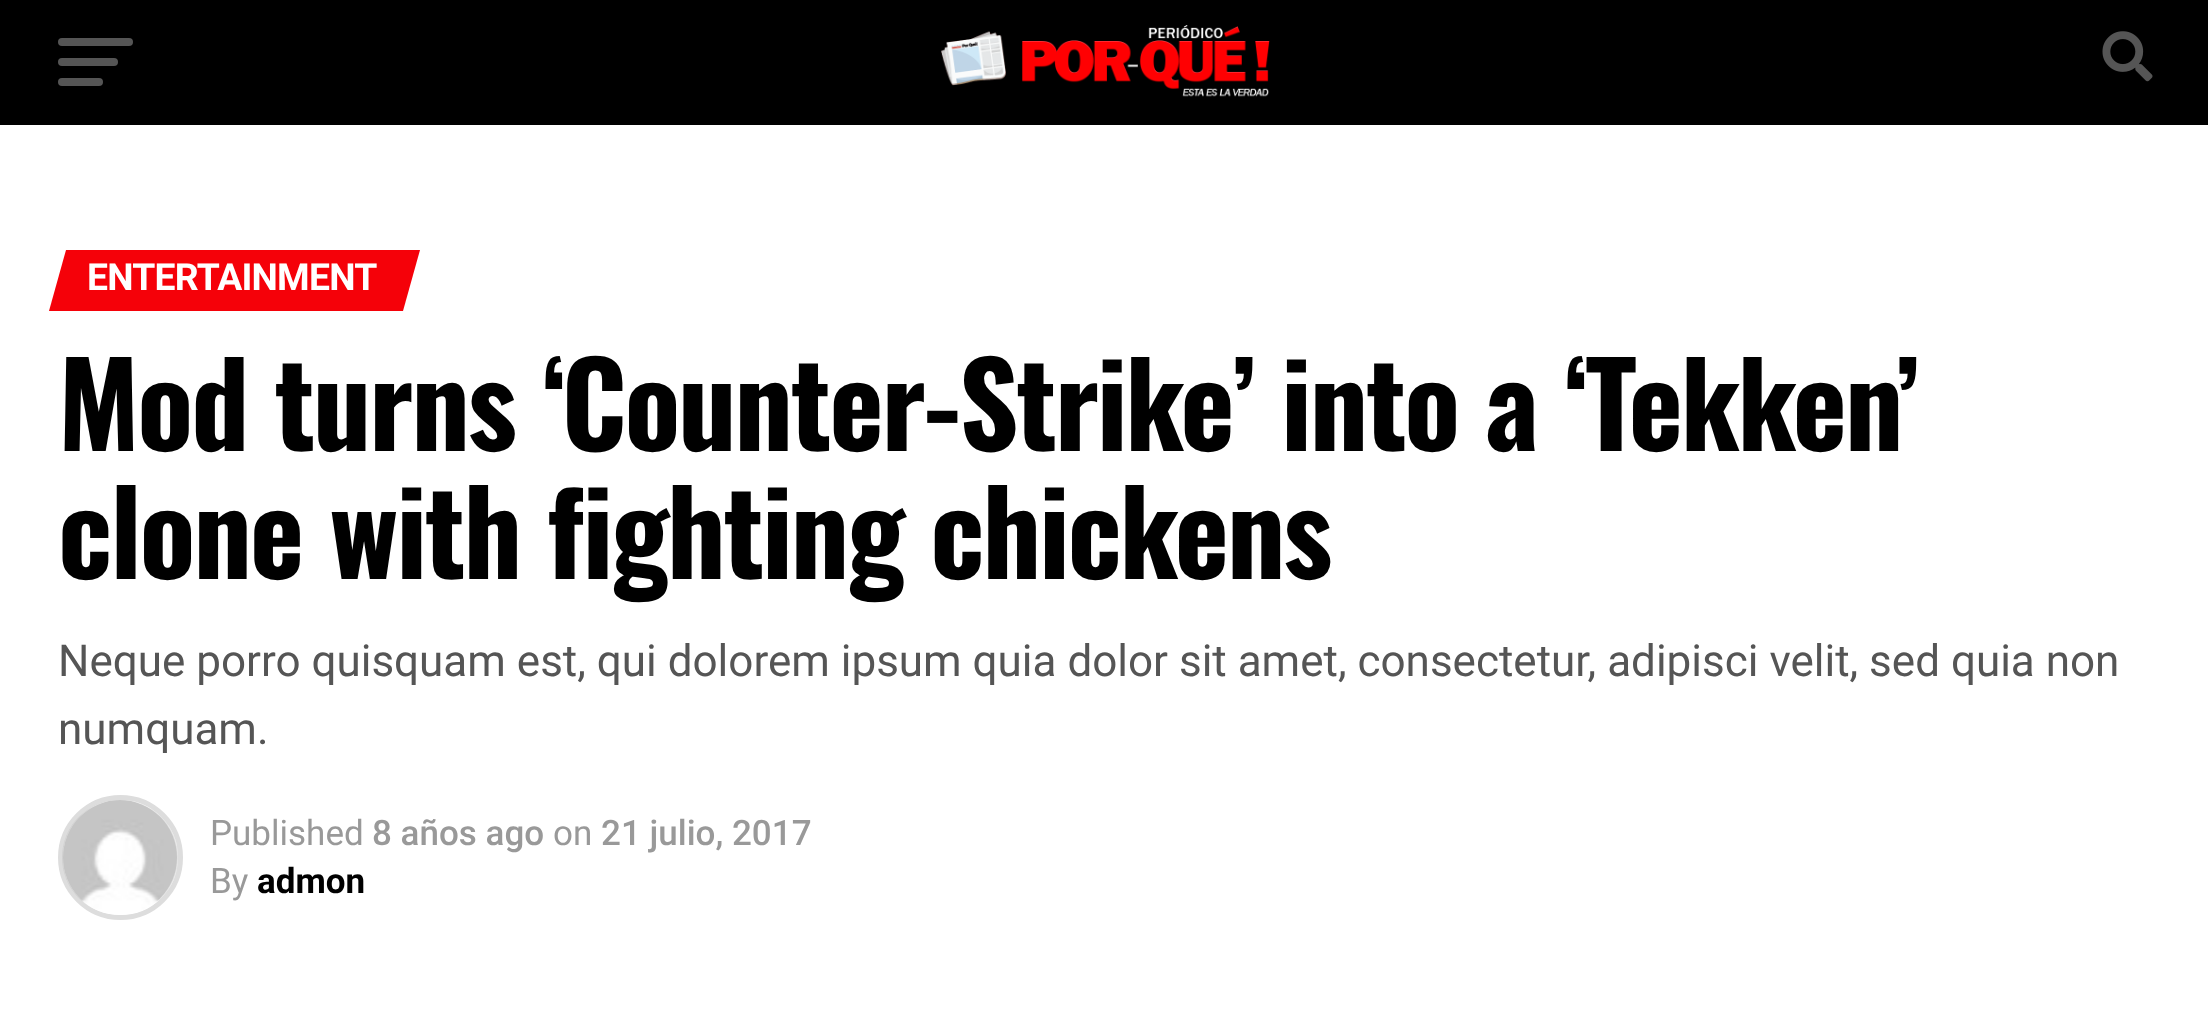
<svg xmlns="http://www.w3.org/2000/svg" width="2208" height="1028">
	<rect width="100%" height="100%" fill="#FFFFFF" />
	<rect x="0" y="0" width="2208" height="125" fill="#000000" />
	<rect x="58" y="38" width="75" height="8" rx="4" fill="#555555" />
	<rect x="58" y="58" width="60" height="8" rx="4" fill="#555555" />
	<rect x="58" y="78" width="45" height="8" rx="4" fill="#555555" />
	<image x="941" y="25" width="329" height="72" href="assets/img1.png" />
	<image x="2102" y="31" width="51" height="51" href="assets/img2.png" />
	<path d="M66 250H420L403 311H49Z" fill="#F50109" />
	<text x="87" y="290" font-family="Roboto" font-size="37.25" font-weight="700" letter-spacing="-0.75" fill="#FFFFFF">ENTERTAINMENT</text>
	<g font-family="Oswald" font-size="116" font-weight="700" letter-spacing="-2.3" fill="#000000">
		<text x="58" y="451">Mod turns ‘Counter-Strike’ into a ‘Tekken’</text>
		<text x="58" y="579">clone with fighting chickens</text>
	</g>
	<g font-family="Roboto" font-size="44" fill="#555555">
		<text x="58" y="676">Neque porro quisquam est, qui dolorem ipsum quia dolor sit amet, consectetur, adipisci velit, sed quia non</text>
		<text x="58" y="744">numquam.</text>
	</g>
	<circle cx="120.5" cy="857.5" r="60" fill="none" stroke="#DDDDDD" stroke-width="5" />
	<image x="62" y="800" width="116" height="115" href="assets/img3.png" />
	<text x="210" y="845" font-family="Roboto" font-size="35" fill="#999999">Published</text>
	<text x="372" y="845" font-family="Roboto" font-size="35" font-weight="500" fill="#999999">8 años ago</text>
	<text x="553" y="845" font-family="Roboto" font-size="35" fill="#999999">on</text>
	<text x="601" y="845" font-family="Roboto" font-size="35" font-weight="500" fill="#999999">21 julio, 2017</text>
	<text x="210" y="893" font-family="Roboto" font-size="35" fill="#999999">By</text>
	<text x="257" y="893" font-family="Roboto" font-size="35" font-weight="700" fill="#000000">admon</text>
</svg>
